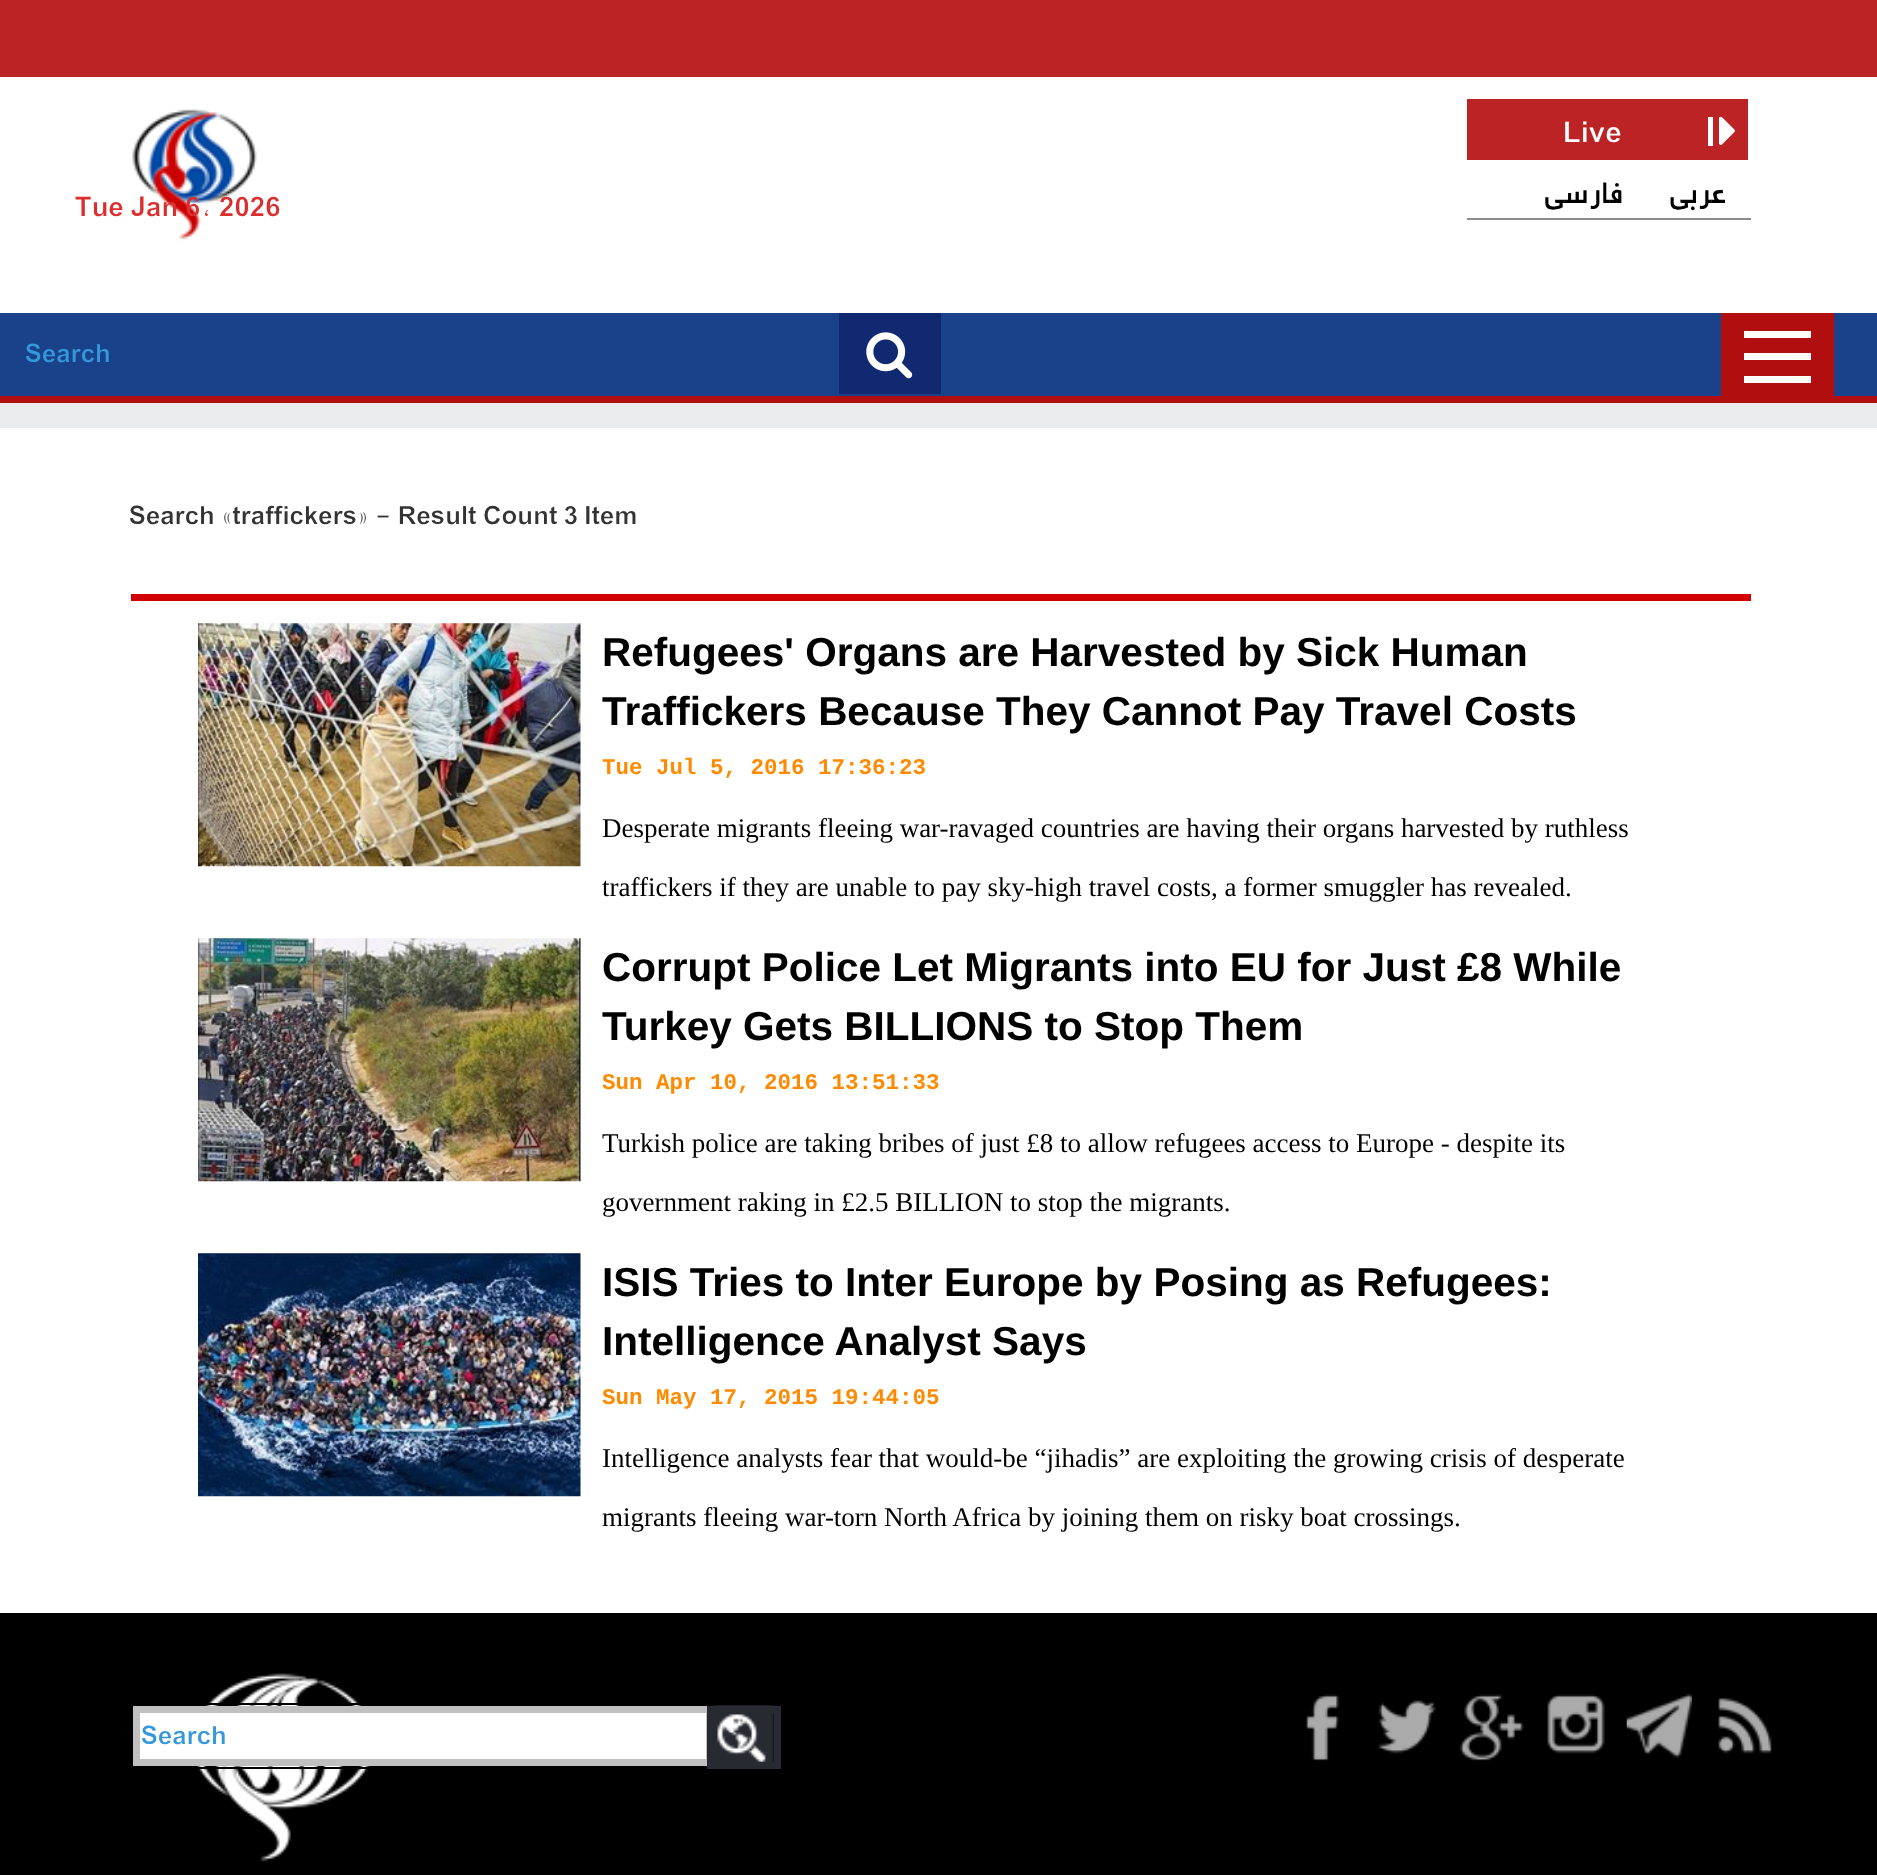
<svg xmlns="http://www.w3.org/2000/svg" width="1877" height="1875">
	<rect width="100%" height="100%" fill="#FFFFFF" />
	<rect x="0" y="403" width="1877" height="25" fill="#E9EBEC" />
	<rect x="0" y="0" width="1877" height="77" fill="#BC2325" />
	<image x="132" y="108" width="125" height="133" href="assets/img1.png" />
	<text x="75" y="216" font-family="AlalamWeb" font-size="33.75" font-weight="300" fill="#DD2E2E">Tue Jan 6, 2026</text>
	<rect x="1467" y="99" width="281" height="61" fill="#BC2325" />
	<text x="1563" y="142" font-family="AlalamWeb" font-size="36" font-weight="300" fill="#FFFFFF">Live</text>
	<rect x="1708" y="117" width="5" height="29" fill="#FFFFFF" />
	<image x="1719" y="117" width="16" height="28" href="assets/img2.png" />
	<rect x="1467" y="218" width="284" height="2" fill="#8C8C8C" />
	<g font-family="AlalamWeb" font-size="36" font-weight="300" direction="rtl" fill="#000000">
		<text x="1623" y="203">فارسی</text>
		<text x="1727" y="203">عربی</text>
	</g>
	<rect x="0" y="313" width="1877" height="83" fill="#1A428A" />
	<rect x="0" y="396" width="1877" height="7" fill="#B10F0F" />
	<text x="25" y="362" font-family="AlalamWeb" font-size="31.5" font-weight="300" fill="#3498DB">Search</text>
	<rect x="839" y="313" width="102" height="81" fill="#112971" />
	<image x="866" y="332" width="47" height="47" href="assets/img3.png" />
	<rect x="1721" y="313" width="113" height="83" fill="#B10F0F" />
	<rect x="1744" y="353" width="67" height="7" fill="#FFFFFF" />
	<rect x="1744" y="331" width="67" height="7" fill="#FFFFFF" />
	<rect x="1744" y="376" width="67" height="7" fill="#FFFFFF" />
	<text x="129" y="524" font-family="AlalamWeb" font-size="31.5" font-weight="300" fill="#333333">Search «traffickers» - Result Count 3 Item</text>
	<rect x="131" y="594" width="1620" height="7" fill="#D20000" />
	<image x="198" y="623" width="383" height="244" href="assets/img4.png" />
	<g font-family="Liberation Sans" font-size="40.5" font-weight="700" fill="#000000">
		<text x="602" y="666">Refugees' Organs are Harvested by Sick Human</text>
		<text x="602" y="725">Traffickers Because They Cannot Pay Travel Costs</text>
	</g>
	<text x="602" y="774" font-family="Liberation Mono" font-size="22.5" font-weight="700" fill="#FF8A00">Tue Jul 5, 2016 17:36:23</text>
	<g font-family="Liberation Serif" font-size="27" fill="#000000">
		<text x="602" y="837">Desperate migrants fleeing war-ravaged countries are having their organs harvested by ruthless</text>
		<text x="602" y="896">traffickers if they are unable to pay sky-high travel costs, a former smuggler has revealed.</text>
	</g>
	<image x="198" y="938" width="383" height="244" href="assets/img5.png" />
	<g font-family="Liberation Sans" font-size="40.5" font-weight="700" fill="#000000">
		<text x="602" y="981">Corrupt Police Let Migrants into EU for Just £8 While</text>
		<text x="602" y="1040">Turkey Gets BILLIONS to Stop Them</text>
	</g>
	<text x="602" y="1089" font-family="Liberation Mono" font-size="22.5" font-weight="700" fill="#FF8A00">Sun Apr 10, 2016 13:51:33</text>
	<g font-family="Liberation Serif" font-size="27" fill="#000000">
		<text x="602" y="1152">Turkish police are taking bribes of just £8 to allow refugees access to Europe - despite its</text>
		<text x="602" y="1211">government raking in £2.5 BILLION to stop the migrants.</text>
	</g>
	<image x="198" y="1253" width="383" height="244" href="assets/img6.png" />
	<g font-family="Liberation Sans" font-size="40.5" font-weight="700" fill="#000000">
		<text x="602" y="1296">ISIS Tries to Inter Europe by Posing as Refugees:</text>
		<text x="602" y="1355">Intelligence Analyst Says</text>
	</g>
	<text x="602" y="1404" font-family="Liberation Mono" font-size="22.5" font-weight="700" fill="#FF8A00">Sun May 17, 2015 19:44:05</text>
	<g font-family="Liberation Serif" font-size="27" fill="#000000">
		<text x="602" y="1467">Intelligence analysts fear that would-be “jihadis” are exploiting the growing crisis of desperate</text>
		<text x="602" y="1526">migrants fleeing war-torn North Africa by joining them on risky boat crossings.</text>
	</g>
	<rect x="0" y="1613" width="1877" height="262" fill="#000000" />
	<image x="190" y="1673" width="187" height="189" href="assets/img8.png" />
	<rect x="132" y="1704" width="650" height="64" rx="4" fill="none" stroke="#000000" stroke-width="2" />
	<rect x="136.5" y="1709.5" width="573" height="53" fill="#FFFFFF" stroke="#C0C0C0" stroke-width="7" />
	<text x="141" y="1744" font-family="AlalamWeb" font-size="31.5" font-weight="300" fill="#3498DB">Search</text>
	<image x="712" y="1705" width="63" height="57" href="assets/img7.png" />
	<rect x="710.5" y="1709.5" width="67" height="56" fill="none" stroke="#272A31" stroke-width="7" />
	<image x="1305" y="1694" width="35" height="67" href="assets/img9.png" />
	<image x="1377" y="1700" width="59" height="54" href="assets/img10.png" />
	<image x="1460" y="1694" width="64" height="67" href="assets/img11.png" />
	<image x="1547" y="1694" width="58" height="60" href="assets/img12.png" />
	<image x="1626" y="1693" width="66" height="65" href="assets/img13.png" />
	<image x="1718" y="1698" width="54" height="56" href="assets/img14.png" />
</svg>
